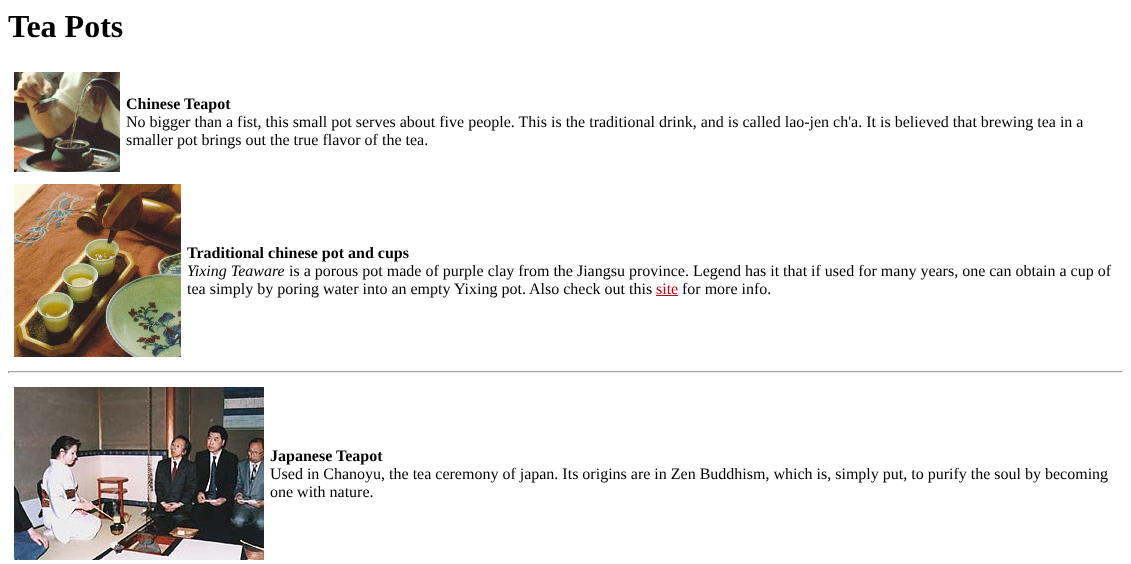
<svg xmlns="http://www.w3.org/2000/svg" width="1131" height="564">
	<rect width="100%" height="100%" fill="#FFFFFF" />
	<text x="8" y="37" font-family="Liberation Serif" font-size="32" font-weight="700" fill="#000000">Tea Pots</text>
	<image x="14" y="72" width="106" height="100" href="assets/img1.png" />
	<text x="126" y="109" font-family="Liberation Serif" font-size="16" font-weight="700" fill="#000000">Chinese Teapot</text>
	<g font-family="Liberation Serif" font-size="16" fill="#000000">
		<text x="126" y="127">No bigger than a fist, this small pot serves about five people. This is the traditional drink, and is called lao-jen ch'a. It is believed that brewing tea in a</text>
		<text x="126" y="145">smaller pot brings out the true flavor of the tea.</text>
	</g>
	<image x="14" y="184" width="167" height="173" href="assets/img2.png" />
	<text x="187" y="258" font-family="Liberation Serif" font-size="16" font-weight="700" fill="#000000">Traditional chinese pot and cups</text>
	<text x="187" y="276" font-family="Liberation Serif" font-size="16" font-style="italic" fill="#000000">Yixing Teaware</text>
	<g font-family="Liberation Serif" font-size="16" fill="#000000">
		<text x="289" y="276">is a porous pot made of purple clay from the Jiangsu province. Legend has it that if used for many years, one can obtain a cup of</text>
		<text x="187" y="294">tea simply by poring water into an empty Yixing pot. Also check out this</text>
	</g>
	<text x="656" y="294" font-family="Liberation Serif" font-size="16" fill="#BF000F">site</text>
	<rect x="656" y="295" width="22" height="1" fill="#BF000F" />
	<text x="682" y="294" font-family="Liberation Serif" font-size="16" fill="#000000">for more info.</text>
	<rect x="8" y="371" width="1115" height="1" fill="#9F9F9F" />
	<rect x="1122" y="371" width="1" height="2" fill="#EEEEEE" />
	<rect x="8" y="372" width="1115" height="1" fill="#EEEEEE" />
	<rect x="8" y="371" width="1" height="2" fill="#9F9F9F" />
	<image x="14" y="387" width="250" height="173" href="assets/img3.png" />
	<text x="270" y="461" font-family="Liberation Serif" font-size="16" font-weight="700" fill="#000000">Japanese Teapot</text>
	<g font-family="Liberation Serif" font-size="16" fill="#000000">
		<text x="270" y="479">Used in Chanoyu, the tea ceremony of japan. Its origins are in Zen Buddhism, which is, simply put, to purify the soul by becoming</text>
		<text x="270" y="497">one with nature.</text>
	</g>
</svg>
